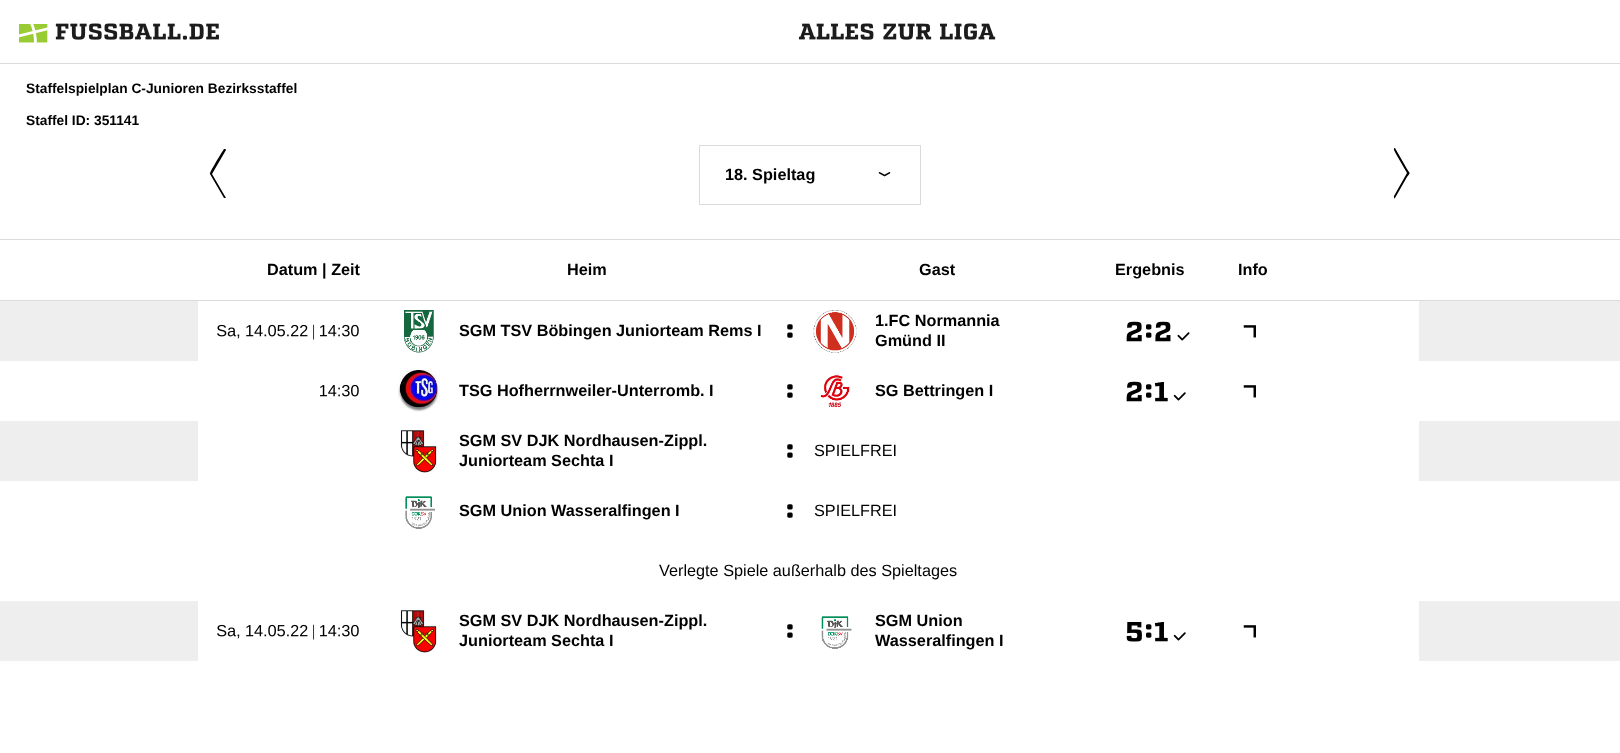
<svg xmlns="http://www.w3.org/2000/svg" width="1620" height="753">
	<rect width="100%" height="100%" fill="#FFFFFF" />
	<rect x="0" y="63" width="1620" height="1" fill="#DBDBDB" />
	<image x="19" y="24" width="29" height="19" href="assets/img1.png" />
	<image x="55" y="23" width="164" height="17" href="assets/img2.png" />
	<image x="798" y="23" width="198" height="17" href="assets/img3.png" />
	<g font-family="Liberation Sans" font-size="13.75" font-weight="700" fill="#000000">
		<text x="26" y="93">Staffelspielplan C-Junioren Bezirksstaffel</text>
		<text x="26" y="125">Staffel ID: 351141</text>
	</g>
	<path d="M226 150L212 174L226 198C225 198 225 198 224 198L210 174C209 173 222 152 224 149H225C226 149 226 150 226 150Z" fill="#000000" />
	<rect x="699.5" y="145.5" width="221" height="59" fill="none" stroke="#DBDBDB" />
	<text x="725" y="180" font-family="Liberation Sans" font-size="16.25" font-weight="700" fill="#000000">18. Spieltag</text>
	<image x="878" y="172" width="13" height="5" href="assets/img4.png" />
	<path d="M1394 196L1407 173L1396 154C1396 153 1392 148 1395 148L1407 169C1410 174 1411 172 1407 177L1395 198C1394 200 1394 196 1394 196Z" fill="#000000" />
	<rect x="0" y="239" width="1620" height="1" fill="#DBDBDB" />
	<g font-family="Liberation Sans" font-size="16.25" font-weight="700" fill="#000000">
		<text x="267" y="275">Datum | Zeit</text>
		<text x="567" y="275">Heim</text>
		<text x="919" y="275">Gast</text>
		<text x="1115" y="275">Ergebnis</text>
		<text x="1238" y="275">Info</text>
	</g>
	<rect x="0" y="300" width="1620" height="1" fill="#DBDBDB" />
	<rect x="0" y="301" width="1620" height="60" fill="#EEEEEE" />
	<rect x="198" y="301" width="1221" height="60" fill="#FFFFFF" />
	<image x="217" y="324" width="23" height="15" href="assets/img5.png" />
	<image x="246" y="324" width="62" height="13" href="assets/img6.png" />
	<text x="312" y="336" font-family="Liberation Serif" font-size="16.25" fill="#000000">|</text>
	<image x="320" y="324" width="39" height="13" href="assets/img7.png" />
	<image x="404" y="310" width="30" height="43" href="assets/img8.png" />
	<text x="459" y="336" font-family="Liberation Sans" font-size="16.25" font-weight="700" fill="#000000">SGM TSV Böbingen Juniorteam Rems I</text>
	<image x="787" y="324" width="6" height="14" href="assets/img9.png" />
	<image x="813" y="310" width="44" height="43" href="assets/img10.png" />
	<g font-family="Liberation Sans" font-size="16.25" font-weight="700" fill="#000000">
		<text x="875" y="326">1.FC Normannia</text>
		<text x="875" y="346">Gmünd II</text>
	</g>
	<image x="1126" y="321" width="16" height="21" href="assets/img11.png" />
	<image x="1146" y="324" width="6" height="14" href="assets/img12.png" />
	<image x="1155" y="321" width="16" height="21" href="assets/img13.png" />
	<image x="1177" y="332" width="13" height="9" href="assets/img14.png" />
	<image x="1243" y="325" width="13" height="13" href="assets/img15.png" />
	<image x="320" y="384" width="39" height="13" href="assets/img7.png" />
	<image x="397" y="370" width="43" height="42" href="assets/img16.png" />
	<text x="459" y="396" font-family="Liberation Sans" font-size="16.25" font-weight="700" fill="#000000">TSG Hofherrnweiler-Unterromb. I</text>
	<image x="787" y="384" width="6" height="14" href="assets/img9.png" />
	<image x="820" y="375" width="30" height="33" href="assets/img17.png" />
	<text x="875" y="396" font-family="Liberation Sans" font-size="16.25" font-weight="700" fill="#000000">SG Bettringen I</text>
	<image x="1126" y="381" width="16" height="21" href="assets/img11.png" />
	<image x="1146" y="384" width="6" height="14" href="assets/img12.png" />
	<image x="1154" y="382" width="14" height="20" href="assets/img18.png" />
	<image x="1173" y="392" width="13" height="9" href="assets/img19.png" />
	<image x="1243" y="385" width="13" height="13" href="assets/img15.png" />
	<rect x="0" y="421" width="1620" height="60" fill="#EEEEEE" />
	<rect x="198" y="421" width="1221" height="60" fill="#FFFFFF" />
	<image x="400" y="430" width="37" height="43" href="assets/img20.png" />
	<g font-family="Liberation Sans" font-size="16.25" font-weight="700" fill="#000000">
		<text x="459" y="446">SGM SV DJK Nordhausen-Zippl.</text>
		<text x="459" y="466">Juniorteam Sechta I</text>
	</g>
	<image x="787" y="444" width="6" height="14" href="assets/img9.png" />
	<text x="814" y="456" font-family="Liberation Sans" font-size="16.25" fill="#000000">SPIELFREI</text>
	<image x="405" y="496" width="30" height="33" href="assets/img21.png" />
	<text x="459" y="516" font-family="Liberation Sans" font-size="16.25" font-weight="700" fill="#000000">SGM Union Wasseralfingen I</text>
	<image x="787" y="504" width="6" height="14" href="assets/img9.png" />
	<g font-family="Liberation Sans" font-size="16.25" fill="#000000">
		<text x="814" y="516">SPIELFREI</text>
		<text x="659" y="576">Verlegte Spiele außerhalb des Spieltages</text>
	</g>
	<rect x="0" y="601" width="1620" height="60" fill="#EEEEEE" />
	<rect x="198" y="601" width="1221" height="60" fill="#FFFFFF" />
	<image x="217" y="624" width="23" height="15" href="assets/img5.png" />
	<image x="246" y="624" width="62" height="13" href="assets/img6.png" />
	<text x="312" y="636" font-family="Liberation Serif" font-size="16.25" fill="#000000">|</text>
	<image x="320" y="624" width="39" height="13" href="assets/img7.png" />
	<image x="400" y="610" width="37" height="43" href="assets/img20.png" />
	<g font-family="Liberation Sans" font-size="16.25" font-weight="700" fill="#000000">
		<text x="459" y="626">SGM SV DJK Nordhausen-Zippl.</text>
		<text x="459" y="646">Juniorteam Sechta I</text>
	</g>
	<image x="787" y="624" width="6" height="14" href="assets/img9.png" />
	<image x="821" y="616" width="31" height="33" href="assets/img22.png" />
	<g font-family="Liberation Sans" font-size="16.25" font-weight="700" fill="#000000">
		<text x="875" y="626">SGM Union</text>
		<text x="875" y="646">Wasseralfingen I</text>
	</g>
	<image x="1126" y="622" width="16" height="20" href="assets/img23.png" />
	<image x="1146" y="624" width="6" height="14" href="assets/img12.png" />
	<image x="1154" y="622" width="14" height="20" href="assets/img18.png" />
	<image x="1173" y="632" width="13" height="9" href="assets/img19.png" />
	<image x="1243" y="625" width="13" height="13" href="assets/img15.png" />
</svg>
